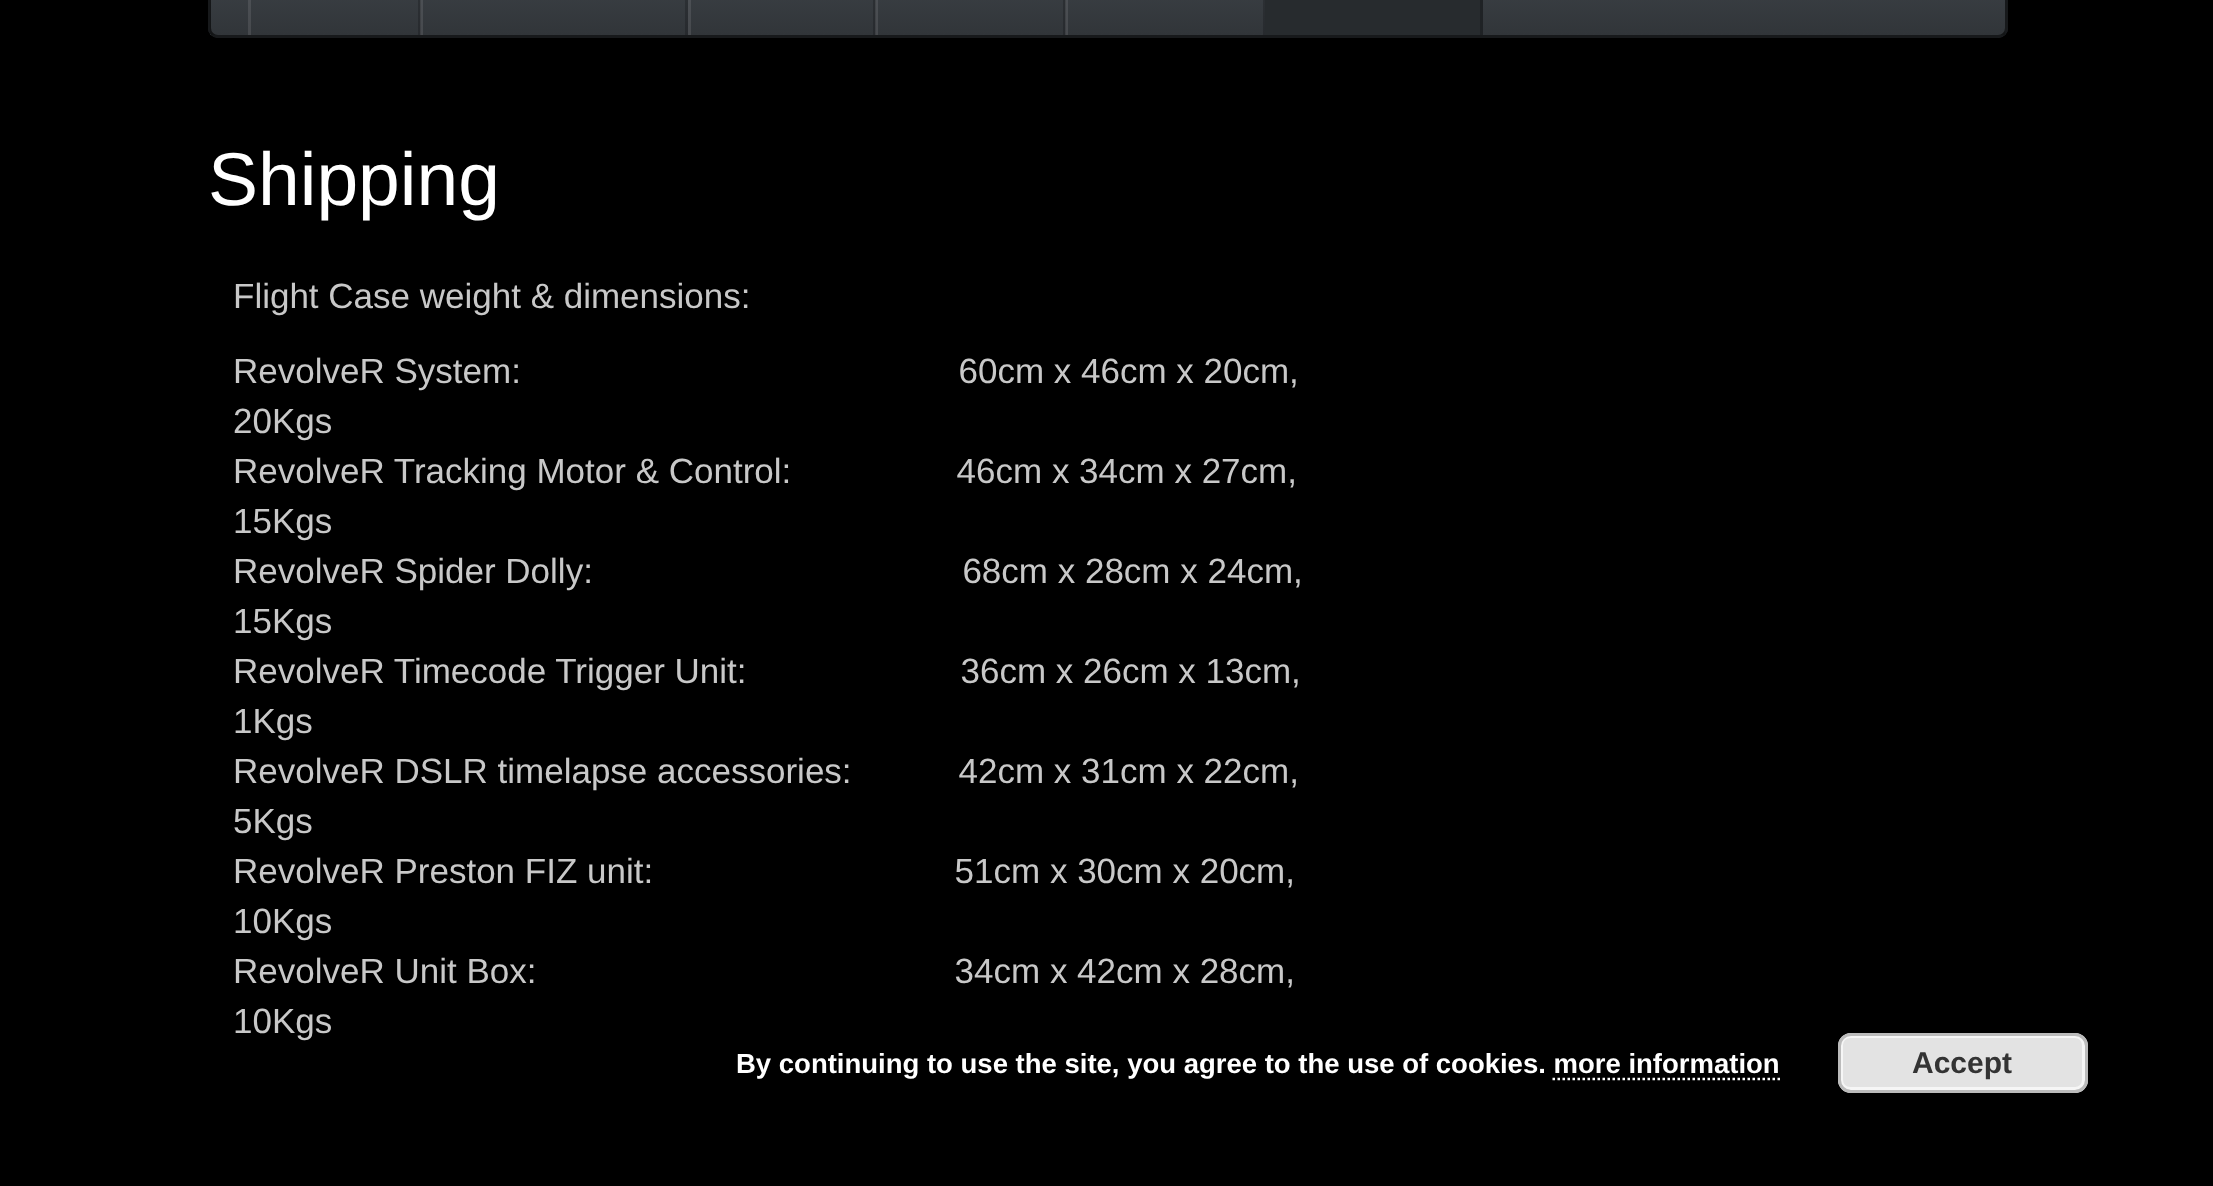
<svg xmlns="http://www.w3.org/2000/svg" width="2213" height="1186">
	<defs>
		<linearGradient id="g1" gradientUnits="userSpaceOnUse" x1="1108" y1="-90" x2="1108" y2="35"><stop offset="0" stop-color="#484E55" /><stop offset="0.6" stop-color="#3A3F44" /><stop offset="1" stop-color="#313539" /></linearGradient>
		<linearGradient id="g2" gradientUnits="userSpaceOnUse" x1="1108" y1="-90" x2="1108" y2="35"><stop offset="0" stop-color="#5A6066" /><stop offset="0.6" stop-color="#4E5257" /><stop offset="1" stop-color="#46494D" /></linearGradient>
		<linearGradient id="g3" gradientUnits="userSpaceOnUse" x1="1108" y1="-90" x2="1108" y2="35"><stop offset="0" stop-color="#3A3E44" /><stop offset="0.6" stop-color="#2E3236" /><stop offset="1" stop-color="#272A2E" /></linearGradient>
		<linearGradient id="g4" gradientUnits="userSpaceOnUse" x1="1108" y1="-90" x2="1108" y2="35"><stop offset="0" stop-color="#4E5157" /><stop offset="0.6" stop-color="#43474A" /><stop offset="1" stop-color="#3D3F43" /></linearGradient>
	</defs>
	<rect width="100%" height="100%" fill="#000000" />
	<rect x="208" y="-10" width="1800" height="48" rx="10" fill="#3A3F44" />
	<rect x="210" y="0" width="1795" height="35" fill="url(#g1)" />
	<rect x="1066" y="0" width="2" height="35" fill="url(#g2)" />
	<rect x="1263" y="0" width="2" height="35" fill="url(#g3)" />
	<rect x="876" y="0" width="2" height="35" fill="url(#g2)" />
	<rect x="1063" y="0" width="2" height="35" fill="url(#g3)" />
	<rect x="1065" y="0" width="1" height="35" fill="url(#g4)" />
	<rect x="688" y="0" width="3" height="35" fill="url(#g2)" />
	<rect x="873" y="0" width="2" height="35" fill="url(#g3)" />
	<rect x="875" y="0" width="1" height="35" fill="url(#g4)" />
	<rect x="421" y="0" width="2" height="35" fill="url(#g2)" />
	<rect x="685" y="0" width="3" height="35" fill="url(#g3)" />
	<rect x="248" y="0" width="3" height="35" fill="url(#g2)" />
	<rect x="418" y="0" width="2" height="35" fill="url(#g3)" />
	<rect x="420" y="0" width="1" height="35" fill="url(#g4)" />
	<rect x="209.5" y="-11.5" width="1797" height="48" rx="8.5" fill="none" stroke="#000000" stroke-opacity="0.6" stroke-width="3" />
	<rect x="1265" y="0" width="215" height="35" fill="#272B2E" />
	<rect x="1480" y="0" width="3" height="35" fill="#1F2225" />
	<text x="208" y="205" font-family="Liberation Sans" font-size="75" fill="#FFFFFF">Shipping</text>
	<g font-family="Liberation Sans" font-size="35" fill="#C8C8C8">
		<text x="233" y="308">Flight Case weight &amp; dimensions:</text>
		<text x="233" y="383" xml:space="preserve">RevolveR System:                                             60cm x 46cm x 20cm,</text>
		<text x="233" y="433">20Kgs</text>
		<text x="233" y="483" xml:space="preserve">RevolveR Tracking Motor &amp; Control:                 46cm x 34cm x 27cm,</text>
		<text x="233" y="533">15Kgs</text>
		<text x="233" y="583" xml:space="preserve">RevolveR Spider Dolly:                                      68cm x 28cm x 24cm,</text>
		<text x="233" y="633">15Kgs</text>
		<text x="233" y="683" xml:space="preserve">RevolveR Timecode Trigger Unit:                      36cm x 26cm x 13cm,</text>
		<text x="233" y="733">1Kgs</text>
		<text x="233" y="783" xml:space="preserve">RevolveR DSLR timelapse accessories:           42cm x 31cm x 22cm,</text>
		<text x="233" y="833">5Kgs</text>
		<text x="233" y="883" xml:space="preserve">RevolveR Preston FIZ unit:                               51cm x 30cm x 20cm,</text>
		<text x="233" y="933">10Kgs</text>
		<text x="233" y="983" xml:space="preserve">RevolveR Unit Box:                                           34cm x 42cm x 28cm,</text>
		<text x="233" y="1033">10Kgs</text>
	</g>
	<text x="736" y="1073" font-family="Liberation Sans" font-size="27.5" font-weight="700" fill="#FFFFFF">By continuing to use the site, you agree to the use of cookies. more information</text>
	<rect x="1838" y="1033" width="250" height="60" rx="13" fill="#E3E3E3" />
	<rect x="1841.5" y="1036.5" width="242" height="52" rx="8.5" fill="none" stroke="#F6F6F6" stroke-width="3" />
	<rect x="1839.5" y="1034.5" width="247" height="57" rx="11.5" fill="none" stroke="#BBBBBB" stroke-width="3" />
	<text x="1912" y="1073" font-family="Liberation Sans" font-size="30" font-weight="700" fill="#333333">Accept</text>
	<path d="M1552.5 1079H1780" fill="none" stroke="#FFFFFF" stroke-width="2.5" stroke-dasharray="2.5 2.5" />
</svg>
